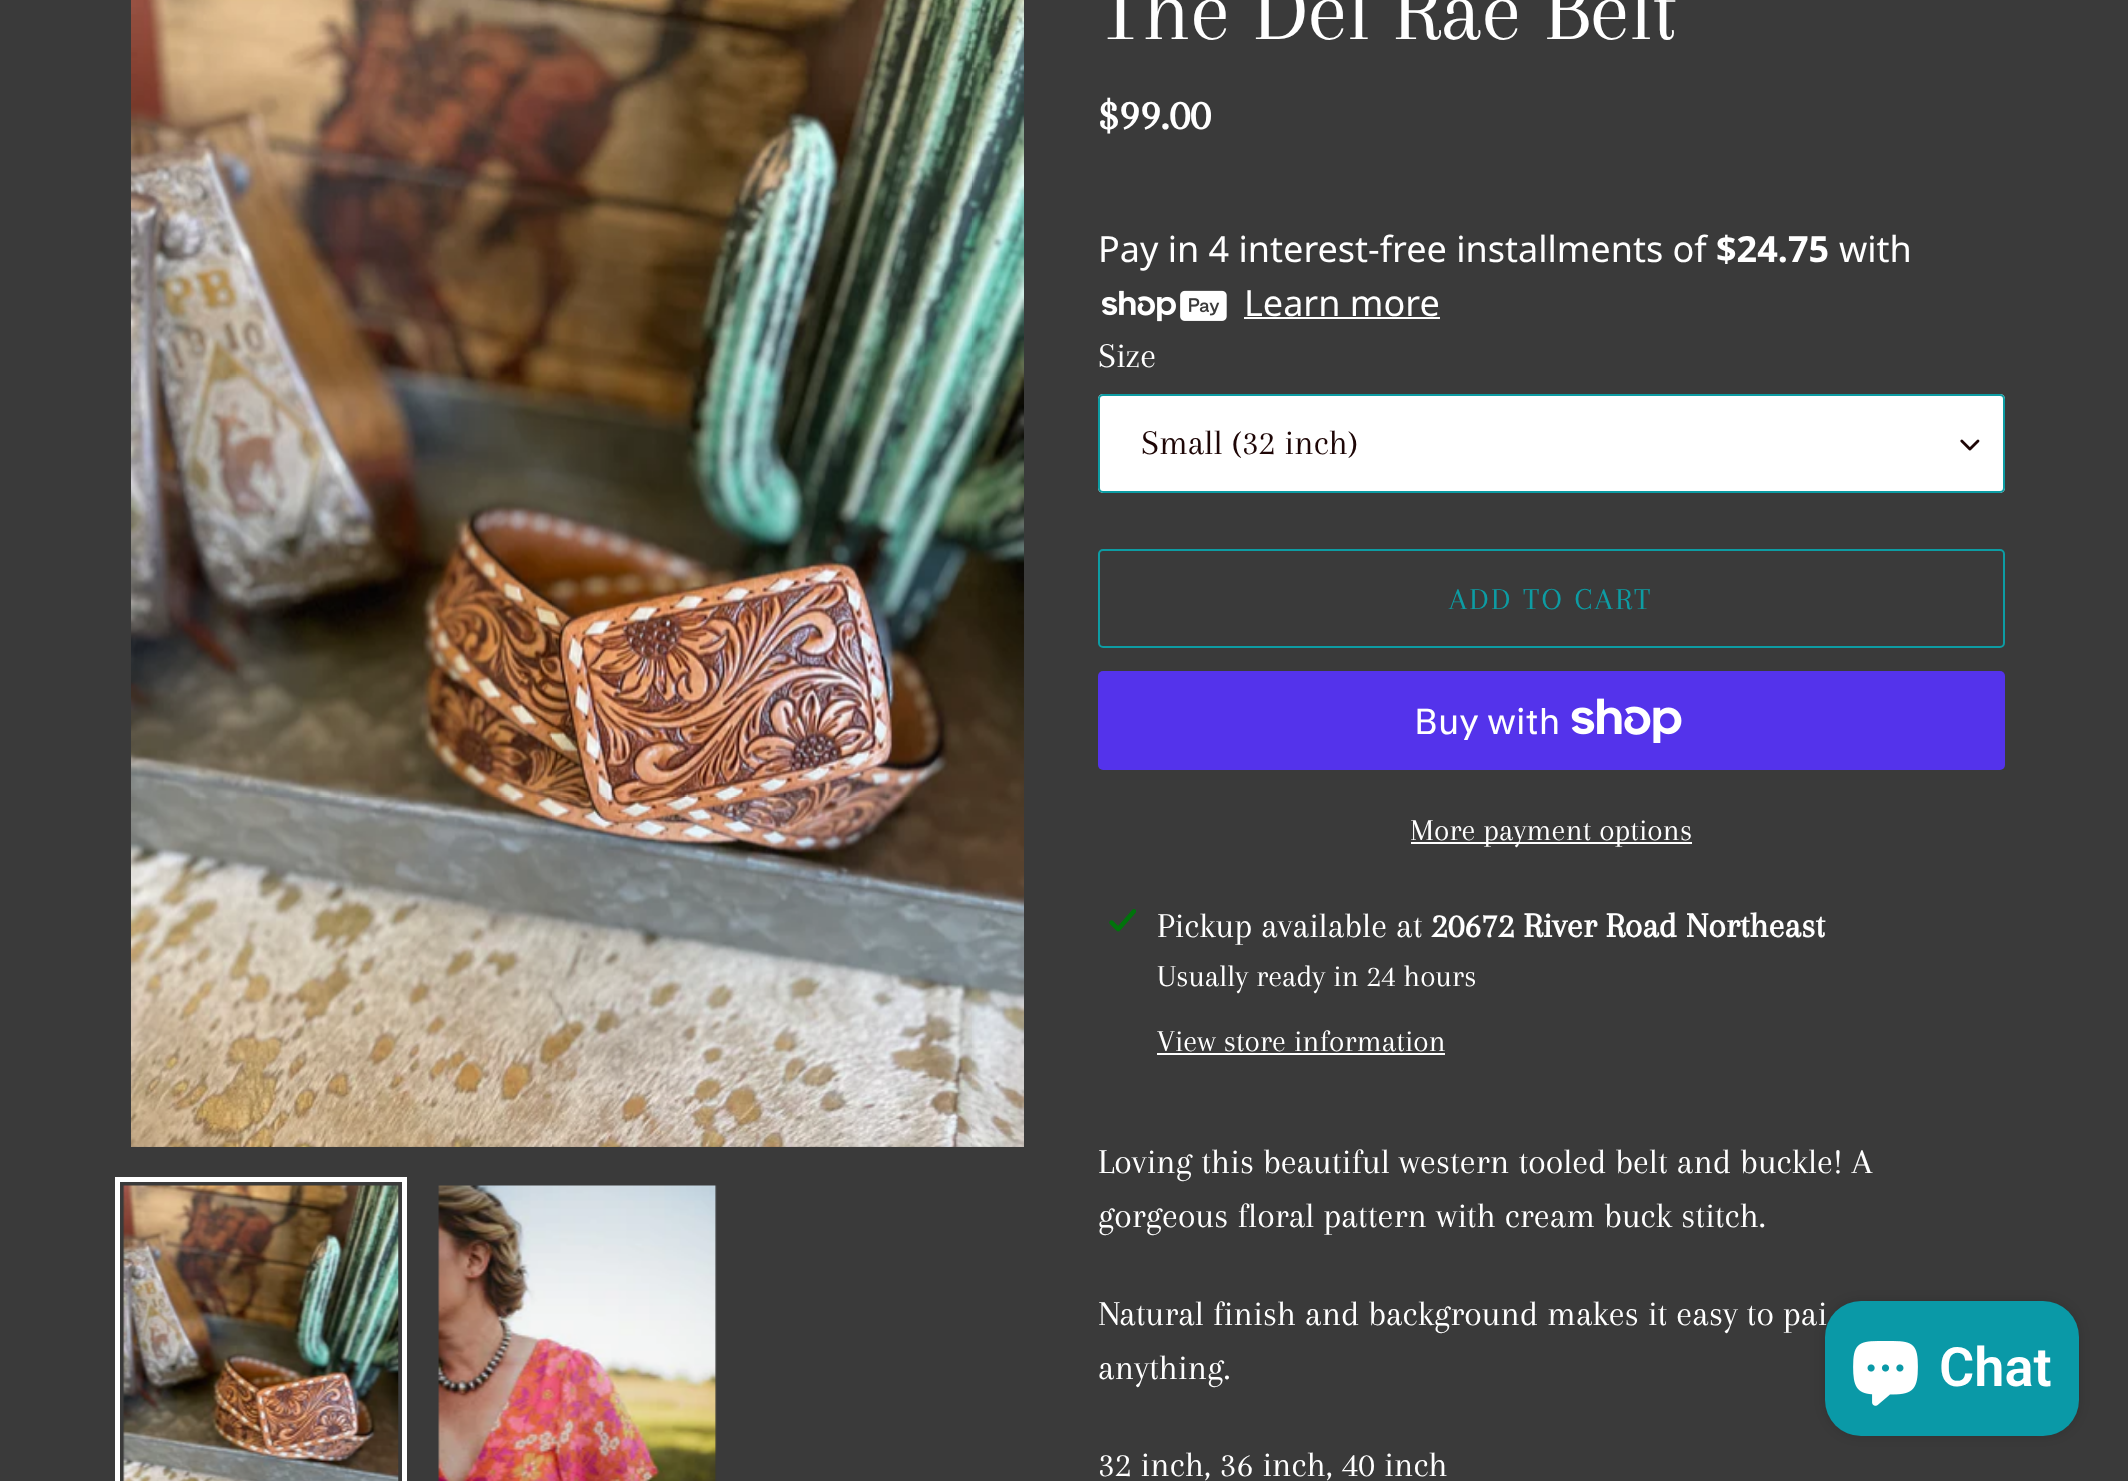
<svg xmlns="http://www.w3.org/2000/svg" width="2128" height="1481">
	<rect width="100%" height="100%" fill="#3A3A3A" />
	<image x="131" y="0" width="893" height="1147" href="assets/img1.png" />
	<rect x="117.5" y="1179.5" width="287" height="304" fill="none" stroke="#FFFFFF" stroke-width="5" />
	<image x="123" y="1185" width="276" height="296" href="assets/img2.png" />
	<image x="438" y="1185" width="279" height="296" href="assets/img3.png" />
	<text x="1098" y="39" font-family="Arapey" font-size="90" fill="#FFFFFF">The Del Rae Belt</text>
	<text x="1098" y="129" font-family="Arapey" font-size="45" font-weight="700" fill="#FFFFFF">$99.00</text>
	<text x="1098" y="262" font-family="Noto Sans" font-size="36" fill="#FFFFFF">Pay in 4 interest-free installments of</text>
	<text x="1716" y="262" font-family="Noto Sans" font-size="36" font-weight="700" fill="#FFFFFF">$24.75</text>
	<text x="1839" y="262" font-family="Noto Sans" font-size="36" fill="#FFFFFF">with</text>
	<image x="1102" y="290" width="125" height="32" href="assets/img4.png" />
	<text x="1244" y="316" font-family="Noto Sans" font-size="36" fill="#FFFFFF">Learn more</text>
	<rect x="1244" y="317" width="196" height="2" fill="#FFFFFF" />
	<text x="1098" y="367" font-family="Arapey" font-size="36" fill="#FFFFFF">Size</text>
	<rect x="1098" y="394" width="907" height="99" rx="5" fill="#FFFFFF" />
	<image x="1960" y="439" width="20" height="12" href="assets/img5.png" />
	<rect x="1099" y="395" width="905" height="97" rx="4" fill="none" stroke="#0D9CA3" stroke-width="2" />
	<text x="1141" y="454" font-family="Arapey" font-size="36" fill="#1E0606">Small (32 inch)</text>
	<rect x="1099" y="550" width="905" height="97" rx="4" fill="none" stroke="#0D9CA3" stroke-width="2" />
	<text x="1449" y="609" font-family="Arapey" font-size="31.5" letter-spacing="2.5" fill="#0D9CA3">ADD TO CART</text>
	<rect x="1098" y="671" width="907" height="99" rx="5" fill="#5433EB" />
	<text x="1414" y="734" font-family="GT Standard" font-size="36" fill="#FFFFFF">Buy with</text>
	<image x="1571" y="698" width="111" height="45" href="assets/img6.png" />
	<rect x="1411" y="842" width="281" height="2" fill="#FFFFFF" />
	<text x="1410" y="840" font-family="Arapey" font-size="31.5" fill="#FFFFFF">More payment options</text>
	<image x="1109" y="909" width="27" height="23" href="assets/img7.png" />
	<text x="1157" y="937" font-family="Arapey" font-size="36" fill="#FFFFFF">Pickup available at</text>
	<text x="1431" y="937" font-family="Arapey" font-size="36" font-weight="700" fill="#FFFFFF">20672 River Road Northeast</text>
	<g font-family="Arapey" font-size="31.5" fill="#FFFFFF">
		<text x="1157" y="986">Usually ready in 24 hours</text>
		<text x="1157" y="1051">View store information</text>
	</g>
	<rect x="1157" y="1053" width="288" height="2" fill="#FFFFFF" />
	<g font-family="Arapey" font-size="36" fill="#FFFFFF">
		<text x="1098" y="1173">Loving this beautiful western tooled belt and buckle! A</text>
		<text x="1098" y="1227">gorgeous floral pattern with cream buck stitch.</text>
		<text x="1098" y="1325">Natural finish and background makes it easy to pai</text>
		<text x="1098" y="1379">anything.</text>
		<text x="1098" y="1476">32 inch, 36 inch, 40 inch</text>
	</g>
	<rect x="1825" y="1301" width="254" height="135" rx="36" fill="#000000" fill-opacity="0.15" filter="blur(5.5px)" />
	<rect x="1825" y="1301" width="254" height="135" rx="36" fill="#0A99A7" />
	<image x="1853" y="1341" width="65" height="65" href="assets/img8.png" />
	<text x="1939" y="1386" font-family="Roboto" font-size="54" font-weight="600" fill="#FFFFFF">Chat</text>
</svg>
